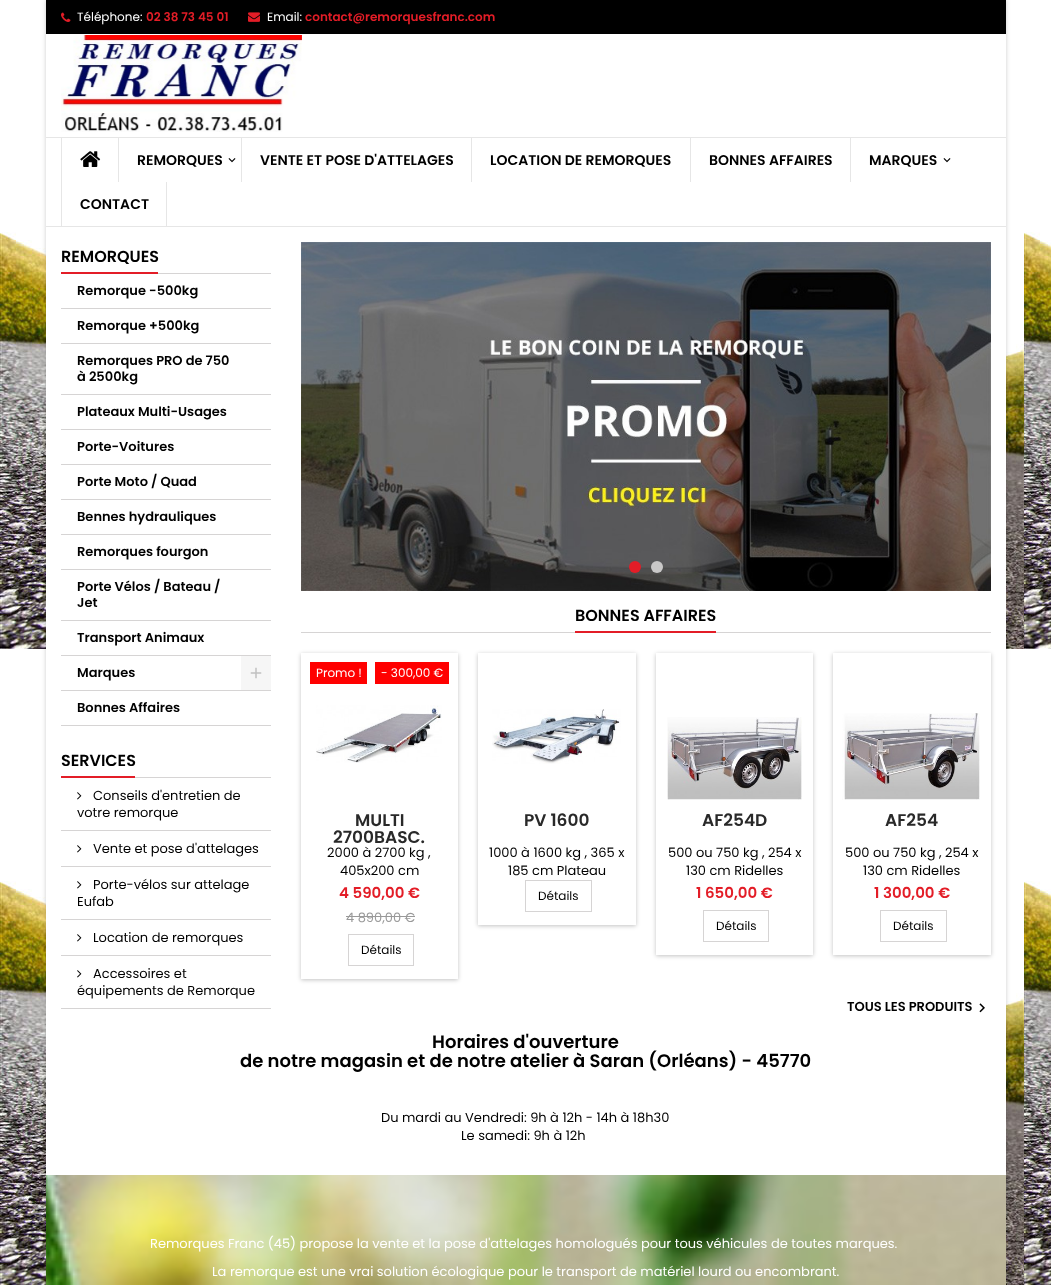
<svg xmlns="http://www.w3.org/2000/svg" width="1051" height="1285">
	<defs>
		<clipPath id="clip1"><path d="M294 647H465V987H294ZM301 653H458V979H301Z" clip-rule="evenodd" /></clipPath>
		<clipPath id="clip2"><path d="M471 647H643V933H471ZM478 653H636V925H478Z" clip-rule="evenodd" /></clipPath>
		<clipPath id="clip3"><path d="M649 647H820V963H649ZM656 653H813V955H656Z" clip-rule="evenodd" /></clipPath>
		<clipPath id="clip4"><path d="M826 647H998V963H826ZM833 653H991V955H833Z" clip-rule="evenodd" /></clipPath>
	</defs>
	<rect width="100%" height="100%" fill="#FFFFFF" />
	<image x="0" y="0" width="1051" height="1285" href="assets/img1.png" />
	<rect x="46" y="0" width="960" height="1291" fill="#000000" fill-opacity="0.2" filter="blur(2px)" />
	<rect x="46" y="34" width="960" height="1141" fill="#FFFFFF" />
	<rect x="46" y="0" width="960" height="34" fill="#000000" />
	<image x="61" y="12" width="10" height="10" href="assets/img2.png" />
	<text x="77" y="21" font-family="Poppins" font-size="12" fill="#FFFFFF">Téléphone:</text>
	<text x="146" y="21" font-family="Poppins" font-size="12" font-weight="600" fill="#E31D27">02 38 73 45 01</text>
	<image x="248" y="12" width="12" height="10" href="assets/img3.png" />
	<text x="267" y="21" font-family="Poppins" font-size="12" fill="#FFFFFF">Email:</text>
	<text x="305" y="21" font-family="Poppins" font-size="12" font-weight="600" fill="#E31D27">contact@remorquesfranc.com</text>
	<image x="61" y="35" width="241" height="97" href="assets/img4.png" />
	<rect x="46" y="137" width="960" height="1" fill="#E6E6E6" />
	<rect x="46" y="226" width="960" height="1" fill="#E6E6E6" />
	<rect x="61" y="138" width="1" height="88" fill="#E6E6E6" />
	<image x="80" y="151" width="21" height="16" href="assets/img5.png" />
	<rect x="118" y="138" width="1" height="44" fill="#E6E6E6" />
	<text x="137" y="165" font-family="Poppins" font-size="14" font-weight="600" fill="#000000">REMORQUES</text>
	<image x="228" y="158" width="8" height="5" href="assets/img6.png" />
	<rect x="241" y="138" width="1" height="44" fill="#E6E6E6" />
	<text x="260" y="165" font-family="Poppins" font-size="14" font-weight="600" fill="#000000">VENTE ET POSE D'ATTELAGES</text>
	<rect x="471" y="138" width="1" height="44" fill="#E6E6E6" />
	<text x="490" y="165" font-family="Poppins" font-size="14" font-weight="600" fill="#000000">LOCATION DE REMORQUES</text>
	<rect x="690" y="138" width="1" height="44" fill="#E6E6E6" />
	<text x="709" y="165" font-family="Poppins" font-size="14" font-weight="600" fill="#000000">BONNES AFFAIRES</text>
	<rect x="850" y="138" width="1" height="44" fill="#E6E6E6" />
	<text x="869" y="165" font-family="Poppins" font-size="14" font-weight="600" fill="#000000">MARQUES</text>
	<image x="943" y="158" width="8" height="5" href="assets/img6.png" />
	<rect x="166" y="182" width="1" height="44" fill="#E6E6E6" />
	<text x="80" y="209" font-family="Poppins" font-size="14" font-weight="600" fill="#000000">CONTACT</text>
	<rect x="158" y="273" width="113" height="1" fill="#D6D4D4" />
	<rect x="61" y="272" width="97" height="2" fill="#E31D27" />
	<text x="61" y="262" font-family="Poppins" font-size="16" font-weight="600" fill="#000000">REMORQUES</text>
	<rect x="61" y="308" width="210" height="1" fill="#D6D4D4" />
	<text x="77" y="295" font-family="Poppins" font-size="13" font-weight="600" fill="#000000">Remorque -500kg</text>
	<rect x="61" y="343" width="210" height="1" fill="#D6D4D4" />
	<text x="77" y="330" font-family="Poppins" font-size="13" font-weight="600" fill="#000000">Remorque +500kg</text>
	<rect x="61" y="394" width="210" height="1" fill="#D6D4D4" />
	<g font-family="Poppins" font-size="13" font-weight="600" fill="#000000">
		<text x="77" y="365">Remorques PRO de 750</text>
		<text x="77" y="381">à 2500kg</text>
	</g>
	<rect x="61" y="429" width="210" height="1" fill="#D6D4D4" />
	<text x="77" y="416" font-family="Poppins" font-size="13" font-weight="600" fill="#000000">Plateaux Multi-Usages</text>
	<rect x="61" y="464" width="210" height="1" fill="#D6D4D4" />
	<text x="77" y="451" font-family="Poppins" font-size="13" font-weight="600" fill="#000000">Porte-Voitures</text>
	<rect x="61" y="499" width="210" height="1" fill="#D6D4D4" />
	<text x="77" y="486" font-family="Poppins" font-size="13" font-weight="600" fill="#000000">Porte Moto / Quad</text>
	<rect x="61" y="534" width="210" height="1" fill="#D6D4D4" />
	<text x="77" y="521" font-family="Poppins" font-size="13" font-weight="600" fill="#000000">Bennes hydrauliques</text>
	<rect x="61" y="569" width="210" height="1" fill="#D6D4D4" />
	<text x="77" y="556" font-family="Poppins" font-size="13" font-weight="600" fill="#000000">Remorques fourgon</text>
	<rect x="61" y="620" width="210" height="1" fill="#D6D4D4" />
	<g font-family="Poppins" font-size="13" font-weight="600" fill="#000000">
		<text x="77" y="591">Porte Vélos / Bateau /</text>
		<text x="77" y="607">Jet</text>
	</g>
	<rect x="61" y="655" width="210" height="1" fill="#D6D4D4" />
	<text x="77" y="642" font-family="Poppins" font-size="13" font-weight="600" fill="#000000">Transport Animaux</text>
	<rect x="61" y="690" width="210" height="1" fill="#D6D4D4" />
	<text x="77" y="677" font-family="Poppins" font-size="13" font-weight="600" fill="#000000">Marques</text>
	<rect x="241" y="656" width="30" height="34" fill="#F6F6F6" />
	<image x="250" y="667" width="12" height="12" href="assets/img7.png" />
	<rect x="61" y="725" width="210" height="1" fill="#D6D4D4" />
	<text x="77" y="712" font-family="Poppins" font-size="13" font-weight="600" fill="#000000">Bonnes Affaires</text>
	<rect x="135" y="777" width="136" height="1" fill="#D6D4D4" />
	<rect x="61" y="776" width="74" height="2" fill="#E31D27" />
	<text x="61" y="766" font-family="Poppins" font-size="16" font-weight="600" fill="#000000">SERVICES</text>
	<rect x="61" y="830" width="210" height="1" fill="#D6D4D4" />
	<image x="77" y="792" width="5" height="8" href="assets/img8.png" />
	<g font-family="Poppins" font-size="13" fill="#000000">
		<text x="93" y="800">Conseils d'entretien de</text>
		<text x="77" y="817">votre remorque</text>
	</g>
	<rect x="61" y="866" width="210" height="1" fill="#D6D4D4" />
	<image x="77" y="845" width="5" height="8" href="assets/img8.png" />
	<text x="93" y="853" font-family="Poppins" font-size="13" fill="#000000">Vente et pose d'attelages</text>
	<rect x="61" y="919" width="210" height="1" fill="#D6D4D4" />
	<image x="77" y="881" width="5" height="8" href="assets/img8.png" />
	<g font-family="Poppins" font-size="13" fill="#000000">
		<text x="93" y="889">Porte-vélos sur attelage</text>
		<text x="77" y="906">Eufab</text>
	</g>
	<rect x="61" y="955" width="210" height="1" fill="#D6D4D4" />
	<image x="77" y="934" width="5" height="8" href="assets/img8.png" />
	<text x="93" y="942" font-family="Poppins" font-size="13" fill="#000000">Location de remorques</text>
	<rect x="61" y="1008" width="210" height="1" fill="#D6D4D4" />
	<image x="77" y="970" width="5" height="8" href="assets/img8.png" />
	<g font-family="Poppins" font-size="13" fill="#000000">
		<text x="93" y="978">Accessoires et</text>
		<text x="77" y="995">équipements de Remorque</text>
	</g>
	<image x="301" y="242" width="690" height="349" href="assets/img9.png" />
	<circle cx="635" cy="567" r="6" fill="#E31D27" />
	<circle cx="657" cy="567" r="6" fill="#C9C8C8" />
	<rect x="301" y="632" width="690" height="1" fill="#D6D4D4" />
	<rect x="575" y="631" width="141" height="2" fill="#E31D27" />
	<text x="575" y="621" font-family="Poppins" font-size="16" font-weight="600" fill="#000000">BONNES AFFAIRES</text>
	<g clip-path="url(#clip1)">
		<rect x="301" y="654" width="157" height="326" fill="#000000" fill-opacity="0.24" filter="blur(2px)" />
	</g>
	<rect x="310" y="662" width="57" height="22" fill="#FF0000" />
	<text x="316" y="677" font-family="Poppins" font-size="12" fill="#FFFFFF">Promo !</text>
	<rect x="375" y="662" width="74" height="22" fill="#FF0000" />
	<text x="381" y="677" font-family="Poppins" font-size="12" fill="#FFFFFF">- 300,00 €</text>
	<image x="316" y="705" width="126" height="58" href="assets/img10.png" />
	<g font-family="Poppins" font-size="17" font-weight="600" fill="#292929">
		<text x="355" y="826">MULTI</text>
		<text x="333" y="843">2700BASC.</text>
	</g>
	<g font-family="Poppins" font-size="13" fill="#000000">
		<text x="327" y="857">2000 à 2700 kg ,</text>
		<text x="340" y="875">405x200 cm</text>
	</g>
	<text x="339" y="898" font-family="Poppins" font-size="15" font-weight="600" fill="#E31D27">4 590,00 €</text>
	<text x="346" y="922" font-family="Poppins" font-size="13" fill="#999999">4 890,00 €</text>
	<rect x="346" y="916" width="69" height="1" fill="#999999" />
	<rect x="348.5" y="934.5" width="65" height="31" fill="none" stroke="#D6D4D4" />
	<text x="361" y="954" font-family="Poppins" font-size="12" fill="#000000">Détails</text>
	<g clip-path="url(#clip2)">
		<rect x="478" y="654" width="158" height="272" fill="#000000" fill-opacity="0.24" filter="blur(2px)" />
	</g>
	<image x="492" y="709" width="129" height="55" href="assets/img11.png" />
	<text x="524" y="826" font-family="Poppins" font-size="17" font-weight="600" fill="#292929">PV 1600</text>
	<g font-family="Poppins" font-size="13" fill="#000000">
		<text x="489" y="857">1000 à 1600 kg , 365 x</text>
		<text x="508" y="875">185 cm Plateau</text>
	</g>
	<rect x="525.5" y="880.5" width="66" height="31" fill="none" stroke="#D6D4D4" />
	<text x="538" y="900" font-family="Poppins" font-size="12" fill="#000000">Détails</text>
	<g clip-path="url(#clip3)">
		<rect x="656" y="654" width="157" height="302" fill="#000000" fill-opacity="0.24" filter="blur(2px)" />
	</g>
	<image x="667" y="717" width="135" height="83" href="assets/img12.png" />
	<text x="702" y="826" font-family="Poppins" font-size="17" font-weight="600" fill="#292929">AF254D</text>
	<g font-family="Poppins" font-size="13" fill="#000000">
		<text x="668" y="857">500 ou 750 kg , 254 x</text>
		<text x="686" y="875">130 cm Ridelles</text>
	</g>
	<text x="696" y="898" font-family="Poppins" font-size="15" font-weight="600" fill="#E31D27">1 650,00 €</text>
	<rect x="703.5" y="910.5" width="65" height="31" fill="none" stroke="#D6D4D4" />
	<text x="716" y="930" font-family="Poppins" font-size="12" fill="#000000">Détails</text>
	<g clip-path="url(#clip4)">
		<rect x="833" y="654" width="158" height="302" fill="#000000" fill-opacity="0.24" filter="blur(2px)" />
	</g>
	<image x="842" y="713" width="138" height="87" href="assets/img13.png" />
	<text x="885" y="826" font-family="Poppins" font-size="17" font-weight="600" fill="#292929">AF254</text>
	<g font-family="Poppins" font-size="13" fill="#000000">
		<text x="845" y="857">500 ou 750 kg , 254 x</text>
		<text x="863" y="875">130 cm Ridelles</text>
	</g>
	<text x="874" y="898" font-family="Poppins" font-size="15" font-weight="600" fill="#E31D27">1 300,00 €</text>
	<rect x="880.5" y="910.5" width="66" height="31" fill="none" stroke="#D6D4D4" />
	<text x="893" y="930" font-family="Poppins" font-size="12" fill="#000000">Détails</text>
	<text x="847" y="1011" font-family="Poppins" font-size="13" font-weight="600" fill="#000000">TOUS LES PRODUITS</text>
	<image x="979" y="1003" width="6" height="10" href="assets/img14.png" />
	<g font-family="Poppins" font-size="18" font-weight="600" fill="#000000">
		<text x="432" y="1048">Horaires d'ouverture</text>
		<text x="240" y="1067">de notre magasin et de notre atelier à Saran (Orléans) - 45770</text>
	</g>
	<g font-family="Poppins" font-size="13" fill="#000000">
		<text x="381" y="1122">Du mardi au Vendredi: 9h à 12h - 14h à 18h30</text>
		<text x="461" y="1140">Le samedi: 9h à 12h</text>
	</g>
	<image x="46" y="1175" width="960" height="110" href="assets/img15.png" />
	<g font-family="Poppins" font-size="13" fill="#FFFFFF">
		<text x="150" y="1248">Remorques Franc (45) propose la vente et la pose d'attelages homologués pour tous véhicules de toutes marques.</text>
		<text x="212" y="1276">La remorque est une vrai solution écologique pour le transport de matériel lourd ou encombrant.</text>
	</g>
</svg>
